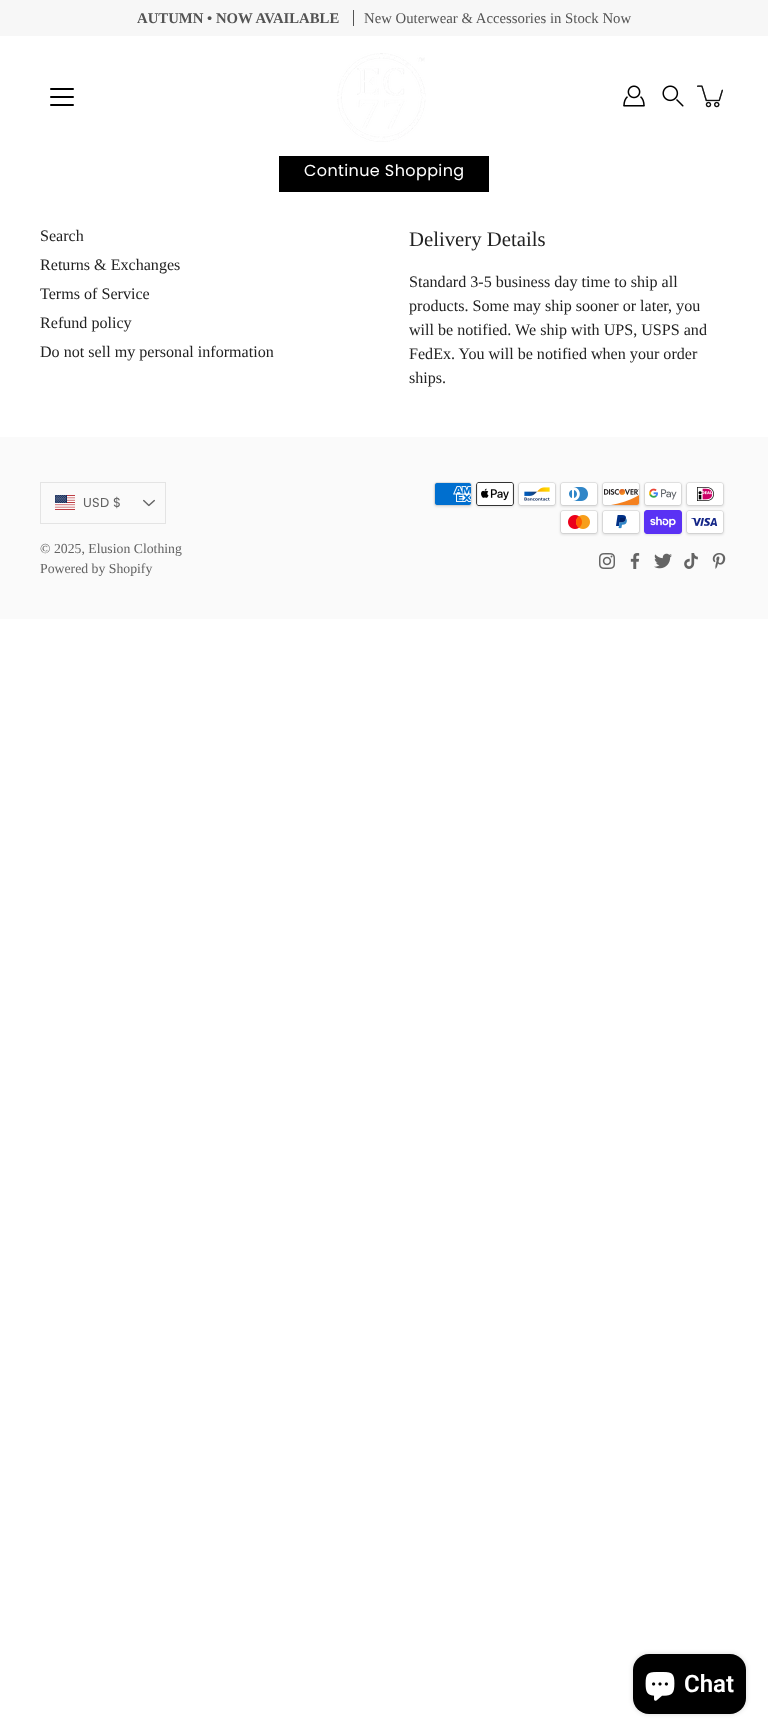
<svg xmlns="http://www.w3.org/2000/svg" width="768" height="1735">
	<rect width="100%" height="100%" fill="#FFFFFF" />
	<rect x="0" y="0" width="768" height="36" fill="#F7F7F7" />
	<text x="137" y="23" font-family="Liberation Serif" font-size="14.75" font-weight="700" fill="#545454">AUTUMN • NOW AVAILABLE</text>
	<rect x="353" y="10" width="1" height="16" fill="#545454" />
	<text x="364" y="23" font-family="Liberation Serif" font-size="14.75" fill="#545454">New Outerwear &amp; Accessories in Stock Now</text>
	<image x="337" y="53" width="89" height="89" href="assets/img1.png" />
	<rect x="50" y="96" width="24" height="2" rx="1" fill="#000000" />
	<rect x="50" y="88" width="24" height="2" rx="1" fill="#000000" />
	<rect x="50" y="104" width="24" height="2" rx="1" fill="#000000" />
	<image x="623" y="85" width="22" height="22" href="assets/img2.png" />
	<image x="662" y="85" width="22" height="22" href="assets/img3.png" />
	<image x="697" y="85" width="26" height="23" href="assets/img4.png" />
	<rect x="279" y="156" width="210" height="36" fill="#000000" />
	<text x="304" y="176" font-family="Poppins" font-size="16" letter-spacing="0.4" fill="#FFFFFF">Continue Shopping</text>
	<g font-family="Liberation Serif" font-size="16.1" fill="#222222">
		<text x="40" y="241">Search</text>
		<text x="40" y="270">Returns &amp; Exchanges</text>
		<text x="40" y="299">Terms of Service</text>
		<text x="40" y="328">Refund policy</text>
		<text x="40" y="357">Do not sell my personal information</text>
	</g>
	<text x="409" y="246" font-family="Liberation Serif" font-size="20.75" fill="#222222">Delivery Details</text>
	<g font-family="Liberation Serif" font-size="16.1" fill="#222222">
		<text x="409" y="287">Standard 3-5 business day time to ship all</text>
		<text x="409" y="311">products. Some may ship sooner or later, you</text>
		<text x="409" y="335">will be notified. We ship with UPS, USPS and</text>
		<text x="409" y="359">FedEx. You will be notified when your order</text>
		<text x="409" y="383">ships.</text>
	</g>
	<rect x="0" y="437" width="768" height="182" fill="#FAFAFA" />
	<rect x="40.5" y="482.5" width="125" height="41" fill="none" stroke="#E4E4E4" />
	<image x="55" y="495" width="20" height="15" href="assets/img5.png" />
	<text x="83" y="507" font-family="Poppins" font-size="13" letter-spacing="0.25" fill="#636363">USD $</text>
	<image x="143" y="499" width="12" height="8" href="assets/img6.png" />
	<g font-family="Liberation Serif" font-size="13.75" fill="#636363">
		<text x="40" y="553">© 2025, Elusion Clothing</text>
		<text x="40" y="573">Powered by Shopify</text>
	</g>
	<rect x="434" y="483" width="38" height="24" rx="3" fill="#000000" fill-opacity="0.1" filter="blur(1px)" />
	<image x="434" y="482" width="38" height="24" href="assets/img7.png" />
	<rect x="476" y="483" width="38" height="24" rx="3" fill="#000000" fill-opacity="0.1" filter="blur(1px)" />
	<image x="476" y="482" width="38" height="24" href="assets/img8.png" />
	<rect x="518" y="483" width="38" height="24" rx="3" fill="#000000" fill-opacity="0.1" filter="blur(1px)" />
	<image x="518" y="482" width="38" height="24" href="assets/img9.png" />
	<rect x="560" y="483" width="38" height="24" rx="3" fill="#000000" fill-opacity="0.1" filter="blur(1px)" />
	<image x="560" y="482" width="38" height="24" href="assets/img10.png" />
	<rect x="602" y="483" width="38" height="24" rx="3" fill="#000000" fill-opacity="0.1" filter="blur(1px)" />
	<image x="602" y="482" width="38" height="24" href="assets/img11.png" />
	<rect x="644" y="483" width="38" height="24" rx="3" fill="#000000" fill-opacity="0.1" filter="blur(1px)" />
	<image x="644" y="482" width="38" height="24" href="assets/img12.png" />
	<rect x="686" y="483" width="38" height="24" rx="3" fill="#000000" fill-opacity="0.1" filter="blur(1px)" />
	<image x="686" y="482" width="38" height="24" href="assets/img13.png" />
	<rect x="560" y="511" width="38" height="24" rx="3" fill="#000000" fill-opacity="0.1" filter="blur(1px)" />
	<image x="560" y="510" width="38" height="24" href="assets/img14.png" />
	<rect x="602" y="511" width="38" height="24" rx="3" fill="#000000" fill-opacity="0.1" filter="blur(1px)" />
	<image x="602" y="510" width="38" height="24" href="assets/img15.png" />
	<rect x="644" y="511" width="38" height="24" rx="3" fill="#000000" fill-opacity="0.1" filter="blur(1px)" />
	<image x="644" y="510" width="38" height="24" href="assets/img16.png" />
	<rect x="686" y="511" width="38" height="24" rx="3" fill="#000000" fill-opacity="0.1" filter="blur(1px)" />
	<image x="686" y="510" width="38" height="24" href="assets/img17.png" />
	<image x="599" y="553" width="16" height="16" href="assets/img18.png" />
	<image x="630" y="553" width="10" height="16" href="assets/img19.png" />
	<image x="654" y="553" width="18" height="16" href="assets/img20.png" />
	<image x="684" y="553" width="14" height="16" href="assets/img21.png" />
	<image x="712" y="553" width="14" height="16" href="assets/img22.png" />
	<rect x="633" y="1654" width="113" height="60" rx="16" fill="#000000" fill-opacity="0.15" filter="blur(2.5px)" />
	<rect x="633" y="1654" width="113" height="60" rx="16" fill="#000000" />
	<image x="645" y="1672" width="30" height="29" href="assets/img23.png" />
	<text x="684" y="1692" font-family="Roboto" font-size="24" font-weight="600" fill="#FFFFFF">Chat</text>
</svg>
